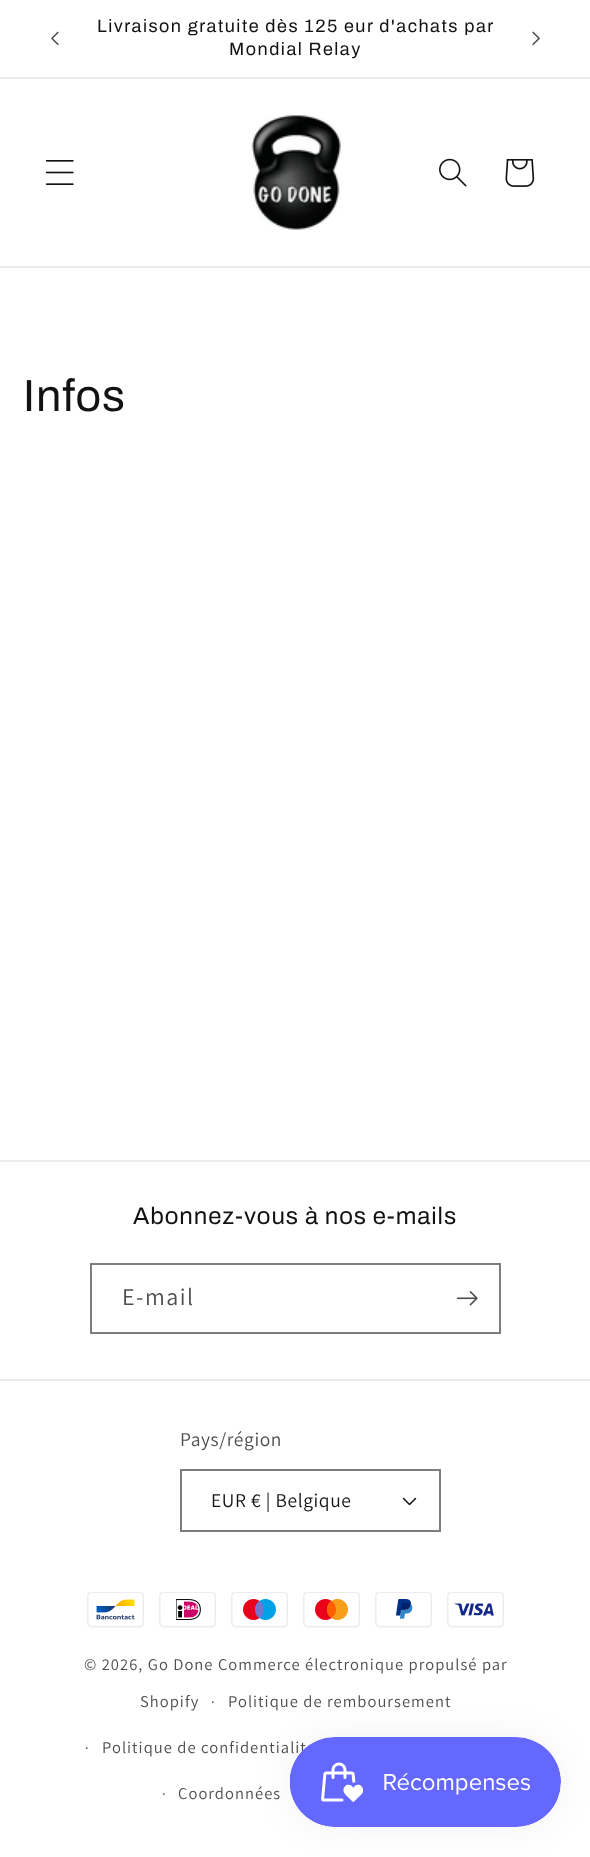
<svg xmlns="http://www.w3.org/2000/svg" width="590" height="1857">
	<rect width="100%" height="100%" fill="#FFFFFF" />
	<rect x="0" y="77" width="590" height="2" fill="#ECECEC" />
	<image x="51" y="31" width="8" height="15" href="assets/img1.png" />
	<g font-family="Archivo" font-size="18" letter-spacing="1.5" fill="#121212">
		<text x="97" y="32">Livraison gratuite dès 125 eur d'achats par</text>
		<text x="229" y="55">Mondial Relay</text>
	</g>
	<image x="532" y="31" width="8" height="15" href="assets/img2.png" />
	<rect x="0" y="266" width="590" height="2" fill="#ECECEC" />
	<image x="45" y="160" width="29" height="25" href="assets/img3.png" />
	<image x="251" y="113" width="91" height="117" href="assets/img4.png" />
	<image x="439" y="158" width="28" height="29" href="assets/img5.png" />
	<image x="505" y="159" width="30" height="28" href="assets/img6.png" />
	<text x="23" y="411" font-family="Archivo" font-size="45" letter-spacing="0.9" fill="#121212">Infos</text>
	<rect x="0" y="1160" width="590" height="2" fill="#ECECEC" />
	<text x="133" y="1224" font-family="Archivo" font-size="24" letter-spacing="0.9" fill="#121212">Abonnez-vous à nos e-mails</text>
	<rect x="91" y="1264" width="409" height="69" fill="none" stroke="#7D7D7D" stroke-width="2" />
	<text x="122" y="1305" font-family="Assistant" font-size="24" letter-spacing="1.5" fill="#4D4D4D">E-mail</text>
	<image x="456" y="1291" width="22" height="15" href="assets/img7.png" />
	<rect x="0" y="1379" width="590" height="2" fill="#ECECEC" />
	<text x="180" y="1446" font-family="Assistant" font-size="19.5" letter-spacing="0.6" fill="#4D4D4D">Pays/région</text>
	<image x="402" y="1497" width="15" height="9" href="assets/img8.png" />
	<rect x="181" y="1470" width="259" height="61" fill="none" stroke="#7D7D7D" stroke-width="2" />
	<text x="211" y="1507" font-family="Assistant" font-size="19.5" letter-spacing="0.6" fill="#121212">EUR € | Belgique</text>
	<image x="87" y="1592" width="57" height="36" href="assets/img9.png" />
	<image x="159" y="1592" width="57" height="36" href="assets/img10.png" />
	<image x="231" y="1592" width="57" height="36" href="assets/img11.png" />
	<image x="303" y="1592" width="57" height="36" href="assets/img12.png" />
	<image x="375" y="1592" width="57" height="36" href="assets/img13.png" />
	<image x="447" y="1592" width="57" height="36" href="assets/img14.png" />
	<text x="84" y="1670" font-family="Assistant" font-size="16.5" letter-spacing="1.05" fill="#4D4D4D">© 2026, Go Done Commerce électronique propulsé par</text>
	<text x="211" y="1707" font-family="Assistant" font-size="15" letter-spacing="1.05" fill="#4D4D4D">·</text>
	<text x="228" y="1707" font-family="Assistant" font-size="16.5" letter-spacing="1.05" fill="#4D4D4D">Politique de remboursement</text>
	<text x="85" y="1753" font-family="Assistant" font-size="15" letter-spacing="1.05" fill="#4D4D4D">·</text>
	<text x="102" y="1753" font-family="Assistant" font-size="16.5" letter-spacing="1.05" fill="#4D4D4D">Politique de confidentialit</text>
	<text x="162" y="1799" font-family="Assistant" font-size="15" letter-spacing="1.05" fill="#4D4D4D">·</text>
	<g font-family="Assistant" font-size="16.5" letter-spacing="1.05" fill="#4D4D4D">
		<text x="178" y="1799">Coordonnées</text>
		<text x="140" y="1707">Shopify</text>
	</g>
	<rect x="290" y="1737" width="271" height="90" rx="45" fill="#000000" fill-opacity="0.05" filter="blur(19px)" />
	<image x="289" y="1737" width="272" height="90" href="assets/img15.png" />
</svg>
